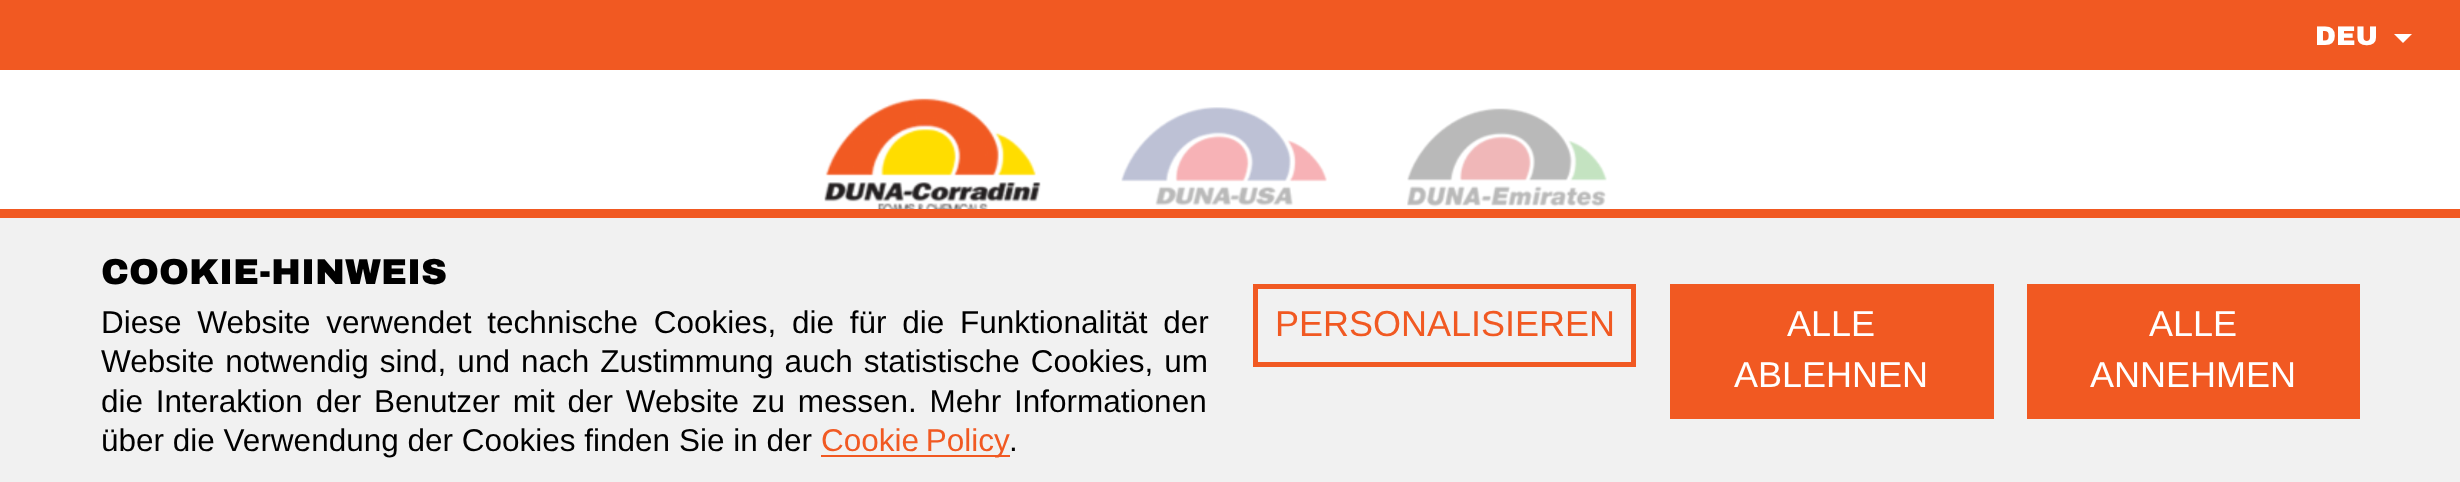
<svg xmlns="http://www.w3.org/2000/svg" width="2460" height="482">
	<rect width="100%" height="100%" fill="#FFFFFF" />
	<rect x="0" y="0" width="2460" height="70" fill="#F15922" />
	<text x="2315" y="45" font-family="Archivo Black" font-size="27" font-weight="900" fill="#FFFFFF">DEU</text>
	<path d="M2394 34H2412L2403 43Z" fill="#FFFFFF" />
	<image x="824" y="98" width="217" height="111" href="assets/img1.png" />
	<image x="1121" y="107" width="206" height="99" href="assets/img2.png" />
	<image x="1407" y="108" width="200" height="99" href="assets/img3.png" />
	<rect x="0" y="218" width="2460" height="264" fill="#F1F1F1" />
	<rect x="0" y="209" width="2460" height="9" fill="#F15922" />
	<text x="101" y="284" font-family="Archivo Black" font-size="36" font-weight="900" fill="#000000">COOKIE-HINWEIS</text>
	<g font-family="Liberation Sans" font-size="31.5" fill="#000000">
		<text x="101" y="333" word-spacing="7">Diese Website verwendet technische Cookies, die für die Funktionalität der</text>
		<text x="101" y="372" word-spacing="2.25">Website notwendig sind, und nach Zustimmung auch statistische Cookies, um</text>
		<text x="101" y="412" word-spacing="4">die Interaktion der Benutzer mit der Website zu messen. Mehr Informationen</text>
		<text x="101" y="451">über die Verwendung der Cookies finden Sie in der</text>
	</g>
	<rect x="821" y="455" width="189" height="2" fill="#F15922" />
	<text x="821" y="451" word-spacing="-2" font-family="Liberation Sans" font-size="31.5" fill="#F15922">Cookie Policy</text>
	<text x="1009" y="451" font-family="Liberation Sans" font-size="31.5" fill="#000000">.</text>
	<rect x="1255.5" y="286.5" width="378" height="78" fill="none" stroke="#F15922" stroke-width="5" />
	<text x="1275" y="336" font-family="Liberation Sans" font-size="36" fill="#F15922">PERSONALISIEREN</text>
	<rect x="1670" y="284" width="324" height="135" fill="#F15922" />
	<g font-family="Liberation Sans" font-size="36" fill="#FFFFFF">
		<text x="1787" y="336">ALLE</text>
		<text x="1734" y="387">ABLEHNEN</text>
	</g>
	<rect x="2027" y="284" width="333" height="135" fill="#F15922" />
	<g font-family="Liberation Sans" font-size="36" fill="#FFFFFF">
		<text x="2149" y="336">ALLE</text>
		<text x="2090" y="387">ANNEHMEN</text>
	</g>
</svg>
